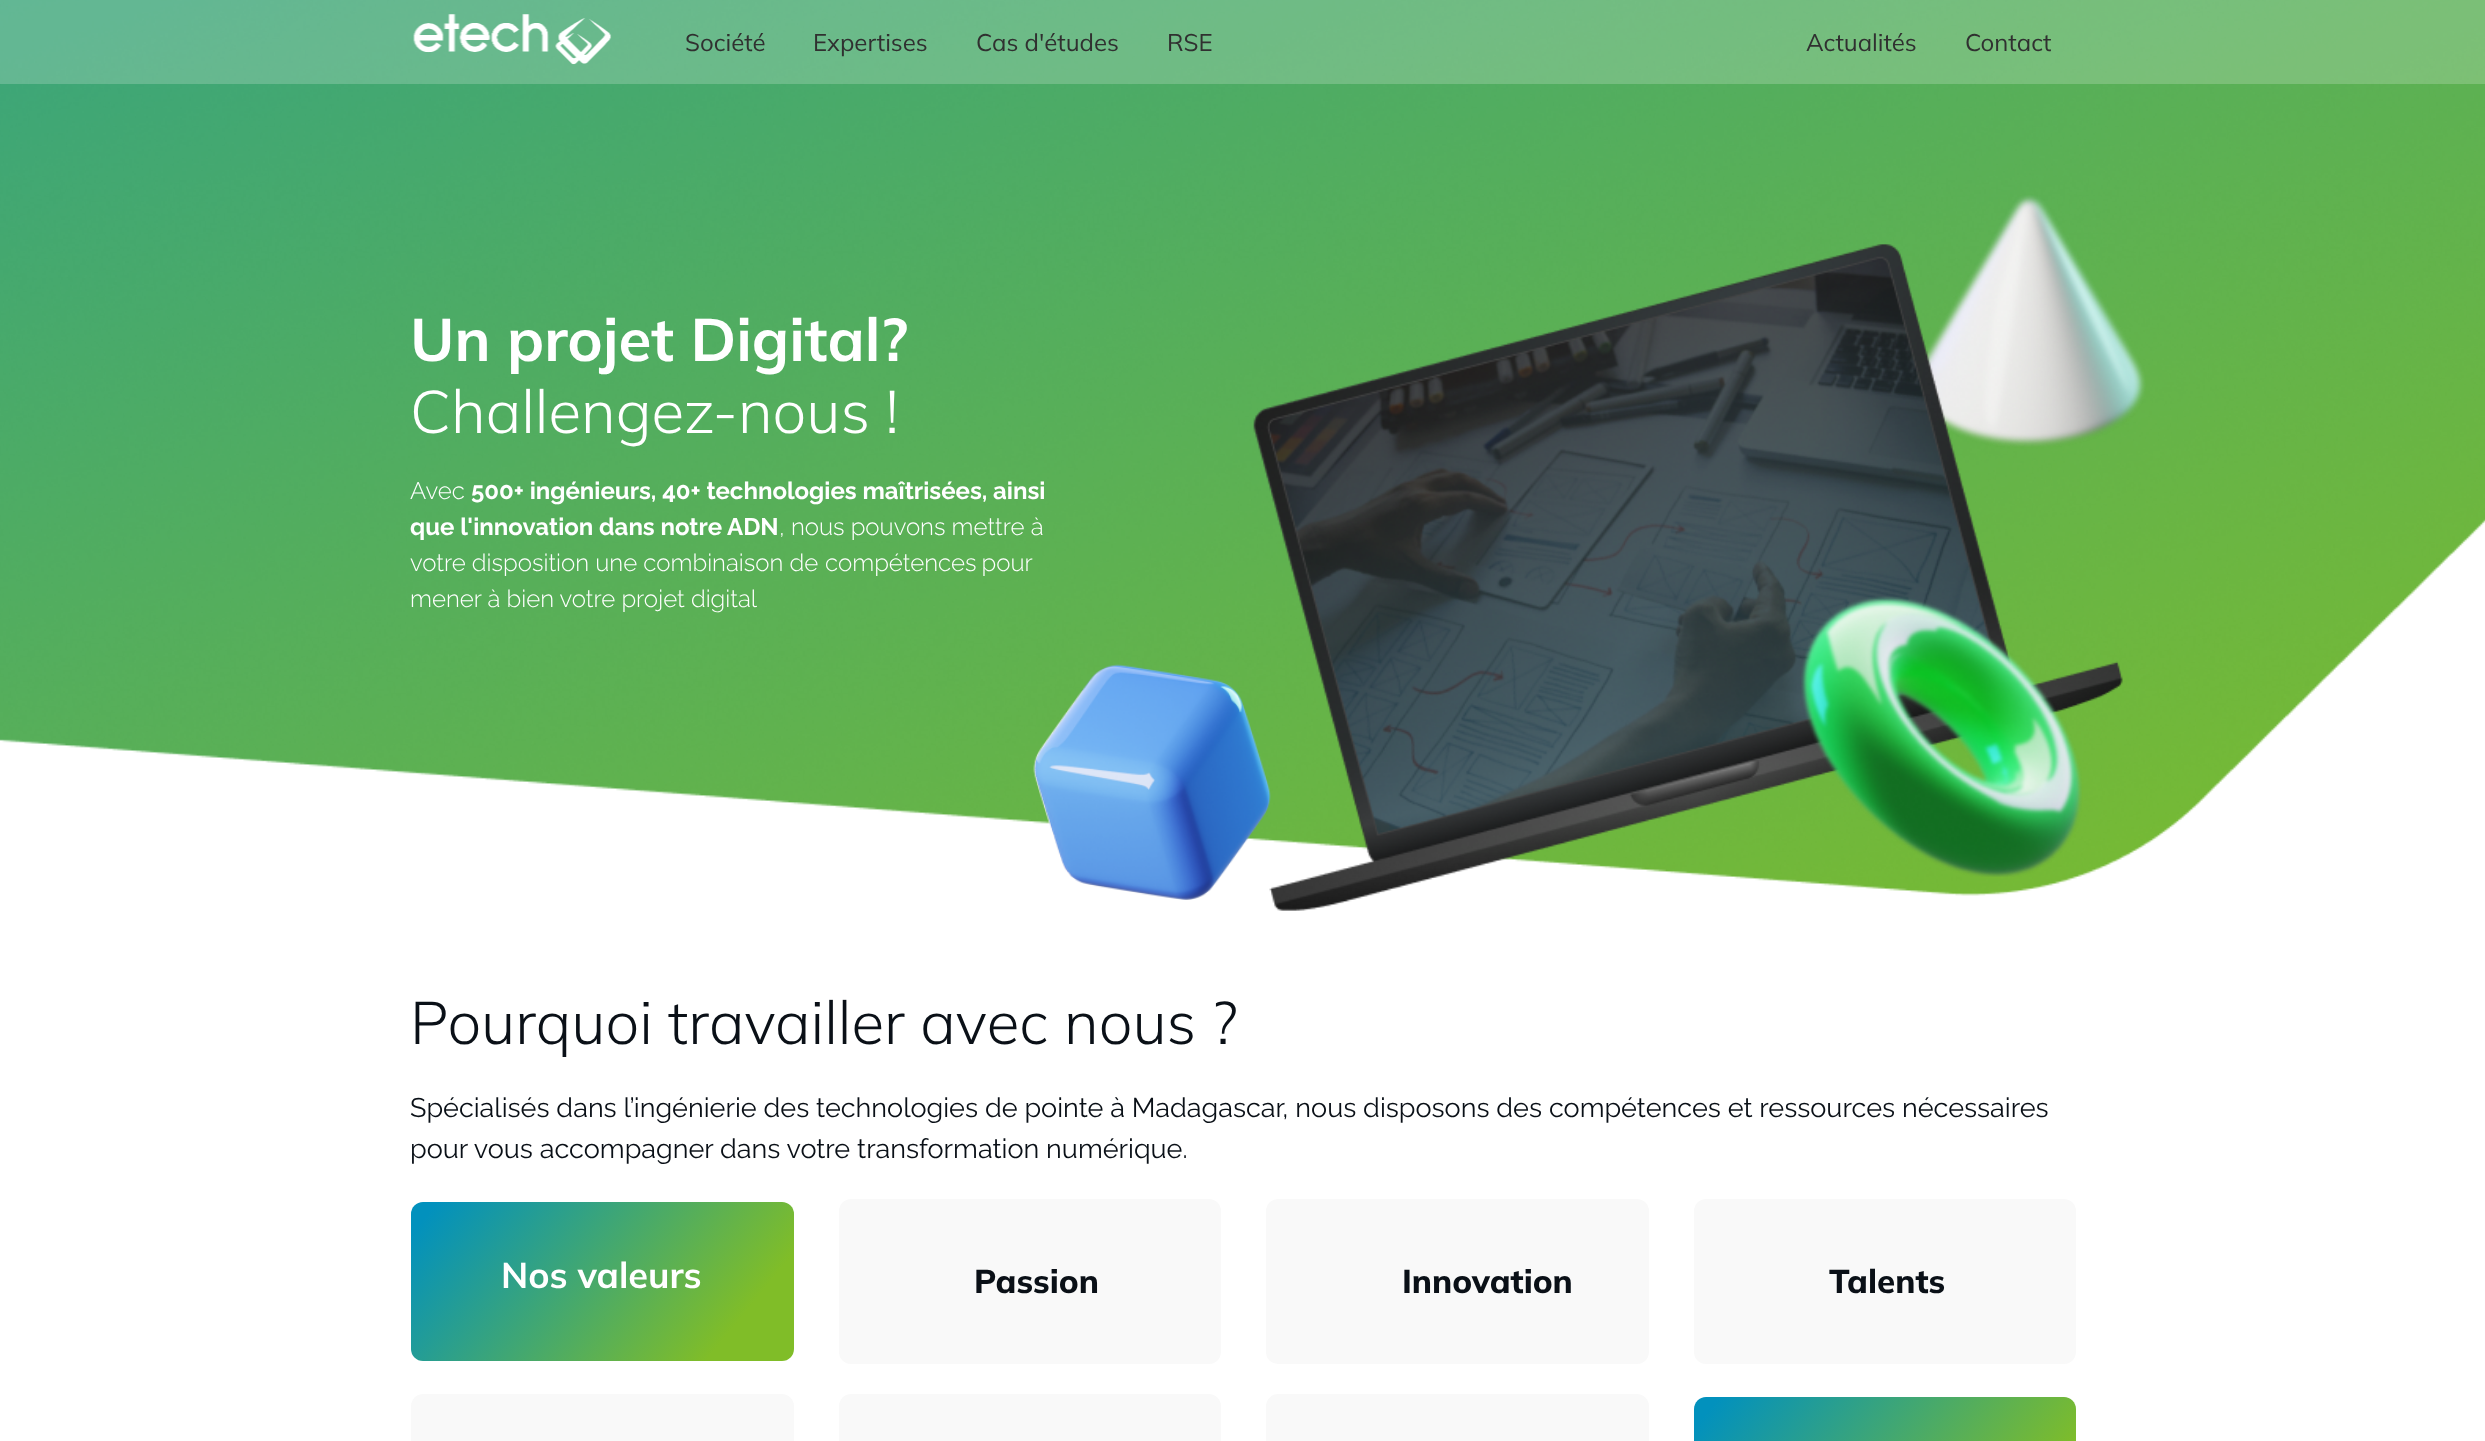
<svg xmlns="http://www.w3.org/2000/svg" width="2485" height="1441">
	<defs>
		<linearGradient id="g1" gradientUnits="userSpaceOnUse" x1="756" y1="1406" x2="449" y2="1156"><stop offset="0.17" stop-color="#80BD28" /><stop offset="0.95" stop-color="#0291BD" /></linearGradient>
		<linearGradient id="g2" gradientUnits="userSpaceOnUse" x1="2038" y1="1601" x2="1731" y2="1351"><stop offset="0.17" stop-color="#80BD28" /><stop offset="0.95" stop-color="#0291BD" /></linearGradient>
	</defs>
	<rect width="100%" height="100%" fill="#FFFFFF" />
	<image x="0" y="0" width="2485" height="896" href="assets/img2.png" />
	<rect x="0" y="0" width="2485" height="84" fill="#FFFFFF" fill-opacity="0.2" />
	<image x="413" y="14" width="199" height="51" href="assets/img1.png" />
	<g font-family="Mulish" font-size="24" fill="#303030">
		<text x="685" y="51">Société</text>
		<text x="813" y="51">Expertises</text>
		<text x="976" y="51">Cas d'études</text>
		<text x="1167" y="51">RSE</text>
		<text x="1806" y="51">Actualités</text>
		<text x="1965" y="51">Contact</text>
	</g>
	<text x="410" y="361" font-family="Mulish" font-size="60" font-weight="700" fill="#FFFFFF">Un projet Digital?</text>
	<text x="410" y="433" font-family="Mulish" font-size="60" font-weight="300" fill="#FFFFFF">Challengez-nous !</text>
	<text x="410" y="499" font-family="Raleway" font-size="24" font-weight="300" fill="#FFFFFF">Avec</text>
	<g font-family="Raleway" font-size="24" font-weight="700" fill="#FFFFFF">
		<text x="471" y="499">500+ ingénieurs, 40+ technologies maîtrisées, ainsi</text>
		<text x="410" y="535">que l'innovation dans notre ADN</text>
	</g>
	<g font-family="Raleway" font-size="24" font-weight="300" fill="#FFFFFF">
		<text x="779" y="535">, nous pouvons mettre à</text>
		<text x="410" y="571">votre disposition une combinaison de</text>
		<text x="825" y="571" word-spacing="-1">compétences pour</text>
		<text x="410" y="607">mener à bien votre projet digital</text>
	</g>
	<image x="1925" y="195" width="221" height="252" href="assets/img3.png" />
	<image x="1253" y="244" width="870" height="667" href="assets/img4.png" />
	<image x="1033" y="664" width="238" height="236" href="assets/img5.png" />
	<image x="1801" y="596" width="281" height="281" href="assets/img6.png" />
	<text x="410" y="1044" font-family="Mulish" font-size="60" font-weight="300" fill="#0A1017">Pourquoi travailler avec nous ?</text>
	<g font-family="Raleway" font-size="27" fill="#0A1017">
		<text x="410" y="1117">Spécialisés dans l’ingénierie des technologies de pointe à Madagascar, nous disposons des compétences et ressources nécessaires</text>
		<text x="410" y="1158">pour vous accompagner dans votre transformation numérique.</text>
	</g>
	<rect x="411" y="1202" width="383" height="159" rx="12" fill="url(#g1)" />
	<text x="501" y="1288" font-family="Mulish" font-size="36" font-weight="700" fill="#FFFFFF">Nos valeurs</text>
	<rect x="839" y="1199" width="382" height="165" rx="12" fill="#F9F9F9" />
	<text x="974" y="1293" font-family="Mulish" font-size="33" font-weight="800" fill="#0A1017">Passion</text>
	<rect x="1266" y="1199" width="383" height="165" rx="12" fill="#F9F9F9" />
	<text x="1402" y="1293" font-family="Mulish" font-size="33" font-weight="800" fill="#0A1017">Innovation</text>
	<rect x="1694" y="1199" width="382" height="165" rx="12" fill="#F9F9F9" />
	<text x="1829" y="1293" font-family="Mulish" font-size="33" font-weight="800" fill="#0A1017">Talents</text>
	<path d="M423 1394H782C788.5 1394 794 1399.5 794 1406V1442H411V1406C411 1399.5 416.5 1394 423 1394Z" fill="#F9F9F9" />
	<path d="M851 1394H1209C1215.5 1394 1221 1399.5 1221 1406V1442H839V1406C839 1399.5 844.5 1394 851 1394Z" fill="#F9F9F9" />
	<path d="M1278 1394H1637C1643.5 1394 1649 1399.5 1649 1406V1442H1266V1406C1266 1399.5 1271.5 1394 1278 1394Z" fill="#F9F9F9" />
	<path d="M1706 1397H2064C2070.5 1397 2076 1402.5 2076 1409V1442H1694V1409C1694 1402.5 1699.5 1397 1706 1397Z" fill="url(#g2)" />
</svg>
